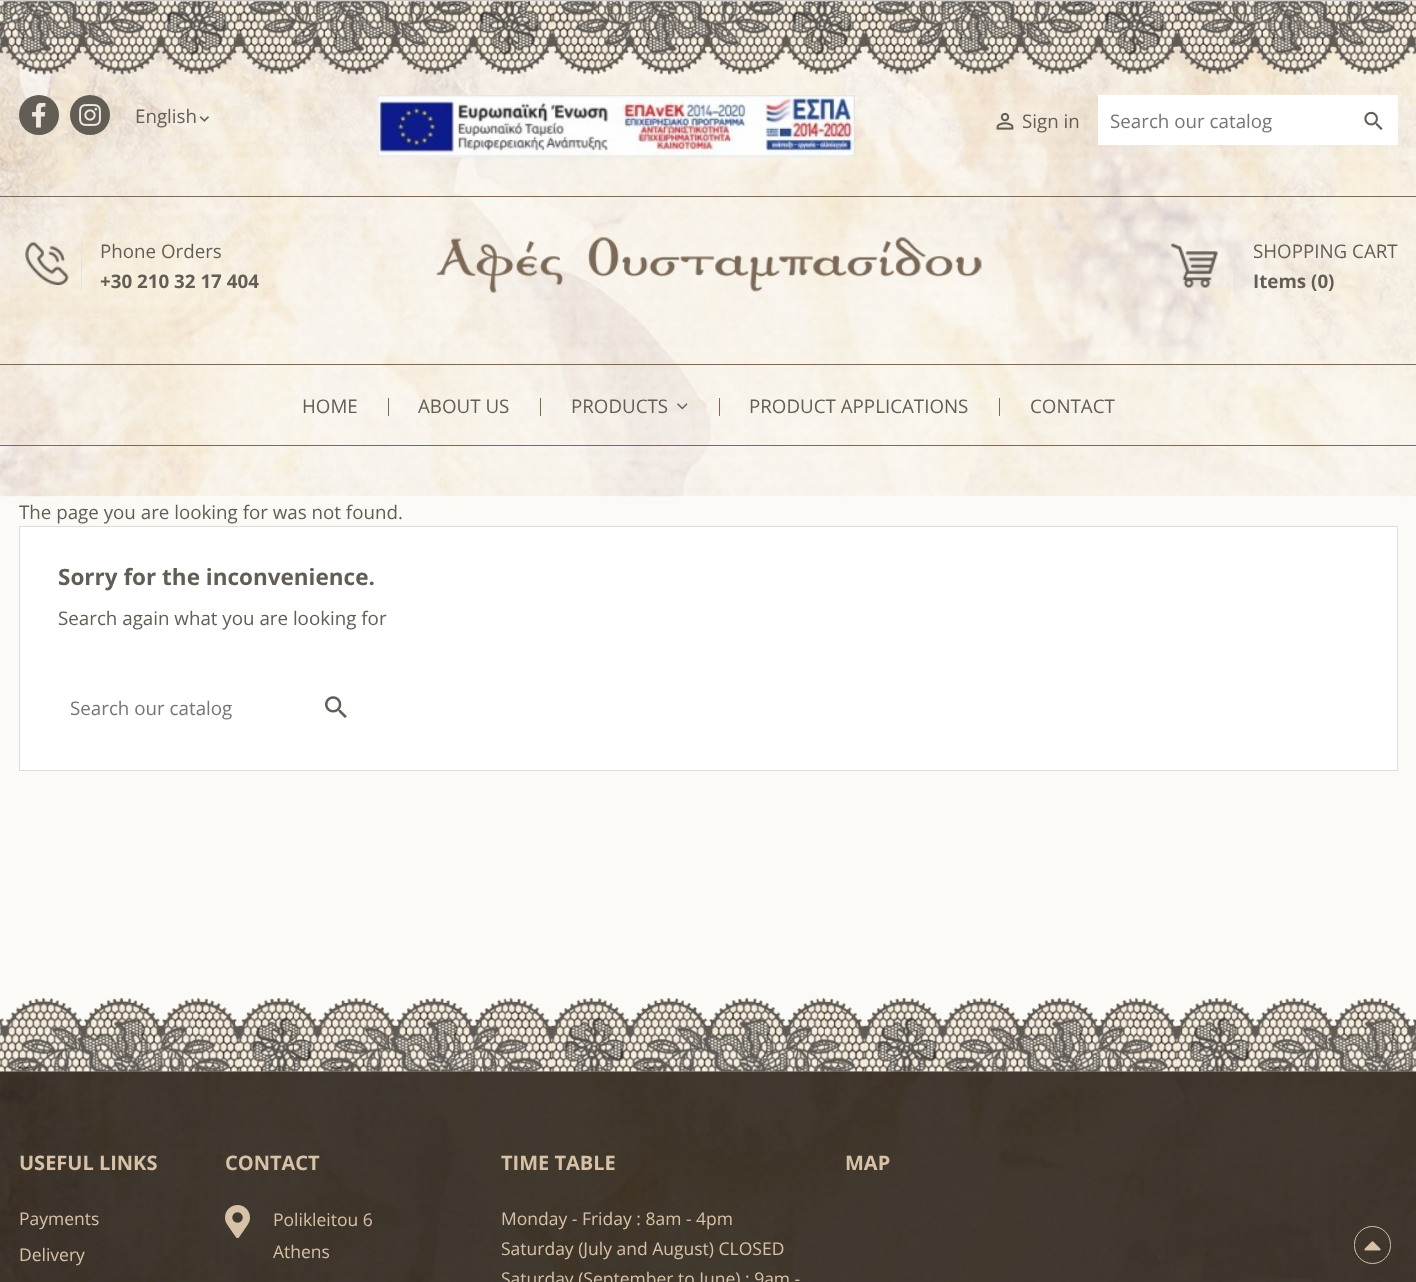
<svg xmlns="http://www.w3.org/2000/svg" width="1416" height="1282">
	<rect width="100%" height="100%" fill="#FCFAF7" />
	<rect x="0" y="0" width="1416" height="1" fill="#CECECE" />
	<image x="0" y="1" width="1416" height="496" href="assets/img1.png" />
	<image x="0" y="1" width="1416" height="75" href="assets/img2.png" />
	<rect x="0" y="196" width="1416" height="1" fill="#7A6956" />
	<circle cx="39" cy="115" r="20" fill="#625D55" />
	<image x="32" y="103" width="14" height="25" href="assets/img3.png" />
	<circle cx="90" cy="115" r="20" fill="#625D55" />
	<image x="79" y="104" width="22" height="22" href="assets/img4.png" />
	<text x="135" y="123" font-family="Open Sans" font-size="18.75" fill="#625D55">English</text>
	<image x="199" y="116" width="10" height="6" href="assets/img5.png" />
	<image x="376" y="95" width="479" height="63" href="assets/img6.png" />
	<image x="996" y="112" width="18" height="18" href="assets/img7.png" />
	<text x="1022" y="128" font-family="Open Sans" font-size="18.75" fill="#625D55">Sign in</text>
	<rect x="1098" y="95" width="300" height="50" fill="#FFFFFF" />
	<text x="1110" y="128" font-family="Open Sans" font-size="18.75" fill="#757575">Search our catalog</text>
	<image x="1364" y="111" width="19" height="19" href="assets/img8.png" />
	<image x="25" y="242" width="44" height="43" href="assets/img9.png" />
	<rect x="81" y="241" width="1" height="50" fill="#E3E3E3" />
	<text x="100" y="258" font-family="Open Sans" font-size="18.75" fill="#625D55">Phone Orders</text>
	<text x="100" y="288" font-family="Open Sans" font-size="18.75" font-weight="700" fill="#625D55">+30 210 32 17 404</text>
	<image x="436" y="237" width="546" height="56" href="assets/img10.png" />
	<image x="1171" y="243" width="47" height="45" href="assets/img11.png" />
	<rect x="1234" y="241" width="1" height="50" fill="#E3E3E3" />
	<text x="1253" y="258" font-family="Open Sans" font-size="18.75" fill="#625D55">SHOPPING CART</text>
	<text x="1253" y="288" font-family="Open Sans" font-size="18.75" font-weight="700" fill="#625D55">Items (0)</text>
	<rect x="0" y="364" width="1416" height="1" fill="#7A6956" />
	<rect x="0" y="445" width="1416" height="1" fill="#7A6956" />
	<text x="302" y="413" font-family="Open Sans" font-size="18.75" fill="#625D55">HOME</text>
	<rect x="388" y="398" width="1" height="18" fill="#7A6956" />
	<text x="418" y="413" font-family="Open Sans" font-size="18.75" fill="#625D55">ABOUT US</text>
	<rect x="540" y="398" width="1" height="18" fill="#7A6956" />
	<text x="571" y="413" font-family="Open Sans" font-size="18.75" fill="#625D55">PRODUCTS</text>
	<image x="677" y="403" width="11" height="7" href="assets/img12.png" />
	<rect x="719" y="398" width="1" height="18" fill="#7A6956" />
	<text x="749" y="413" font-family="Open Sans" font-size="18.75" fill="#625D55">PRODUCT APPLICATIONS</text>
	<rect x="999" y="398" width="1" height="18" fill="#7A6956" />
	<g font-family="Open Sans" font-size="18.75" fill="#625D55">
		<text x="1030" y="413">CONTACT</text>
		<text x="19" y="519">The page you are looking for was not found.</text>
	</g>
	<rect x="19.5" y="526.5" width="1378" height="244" fill="#FFFFFF" stroke="#DDDDDD" />
	<text x="58" y="585" font-family="Open Sans" font-size="22.5" font-weight="700" fill="#625D55">Sorry for the inconvenience.</text>
	<text x="58" y="625" font-family="Open Sans" font-size="18.75" fill="#625D55">Search again what you are looking for</text>
	<text x="70" y="715" font-family="Open Sans" font-size="18.75" fill="#757575">Search our catalog</text>
	<image x="325" y="696" width="22" height="22" href="assets/img13.png" />
	<image x="0" y="1071" width="1416" height="211" href="assets/img14.png" />
	<image x="0" y="997" width="1416" height="75" href="assets/img15.png" />
	<rect x="28" y="1147" width="16" height="32" fill="#3F372C" fill-opacity="0.31" />
	<text x="19" y="1170" font-family="Open Sans" font-size="20" font-weight="700" fill="#D7C2A8">USEFUL LINKS</text>
	<rect x="19" y="1211" width="134" height="71" fill="#3F372C" fill-opacity="0.31" />
	<g font-family="Open Sans" font-size="17.5" fill="#D7C2A8">
		<text x="19" y="1225">Payments</text>
		<text x="19" y="1261">Delivery</text>
	</g>
	<text x="225" y="1170" font-family="Open Sans" font-size="20" font-weight="700" fill="#D7C2A8">CONTACT</text>
	<image x="225" y="1205" width="25" height="33" href="assets/img16.png" />
	<g font-family="Open Sans" font-size="17.5" fill="#D7C2A8">
		<text x="273" y="1226">Polikleitou 6</text>
		<text x="273" y="1258">Athens</text>
	</g>
	<rect x="642" y="1173" width="3" height="2" fill="#3F372C" fill-opacity="0.31" />
	<text x="501" y="1170" font-family="Open Sans" font-size="20" font-weight="700" fill="#D7C2A8">TIME TABLE</text>
	<rect x="576" y="1204" width="70" height="78" fill="#3F372C" fill-opacity="0.31" />
	<g font-family="Open Sans" font-size="17.5" fill="#D7C2A8">
		<text x="501" y="1225">Monday - Friday : 8am - 4pm</text>
		<text x="501" y="1255">Saturday (July and August) CLOSED</text>
		<text x="501" y="1285">Saturday (September to June) : 9am -</text>
	</g>
	<text x="845" y="1170" font-family="Open Sans" font-size="20" font-weight="700" fill="#D7C2A8">MAP</text>
	<rect x="1354.5" y="1226.5" width="36" height="37" rx="18" fill="none" stroke="#D7C2A8" />
	<image x="1364" y="1241" width="17" height="10" href="assets/img17.png" />
</svg>
